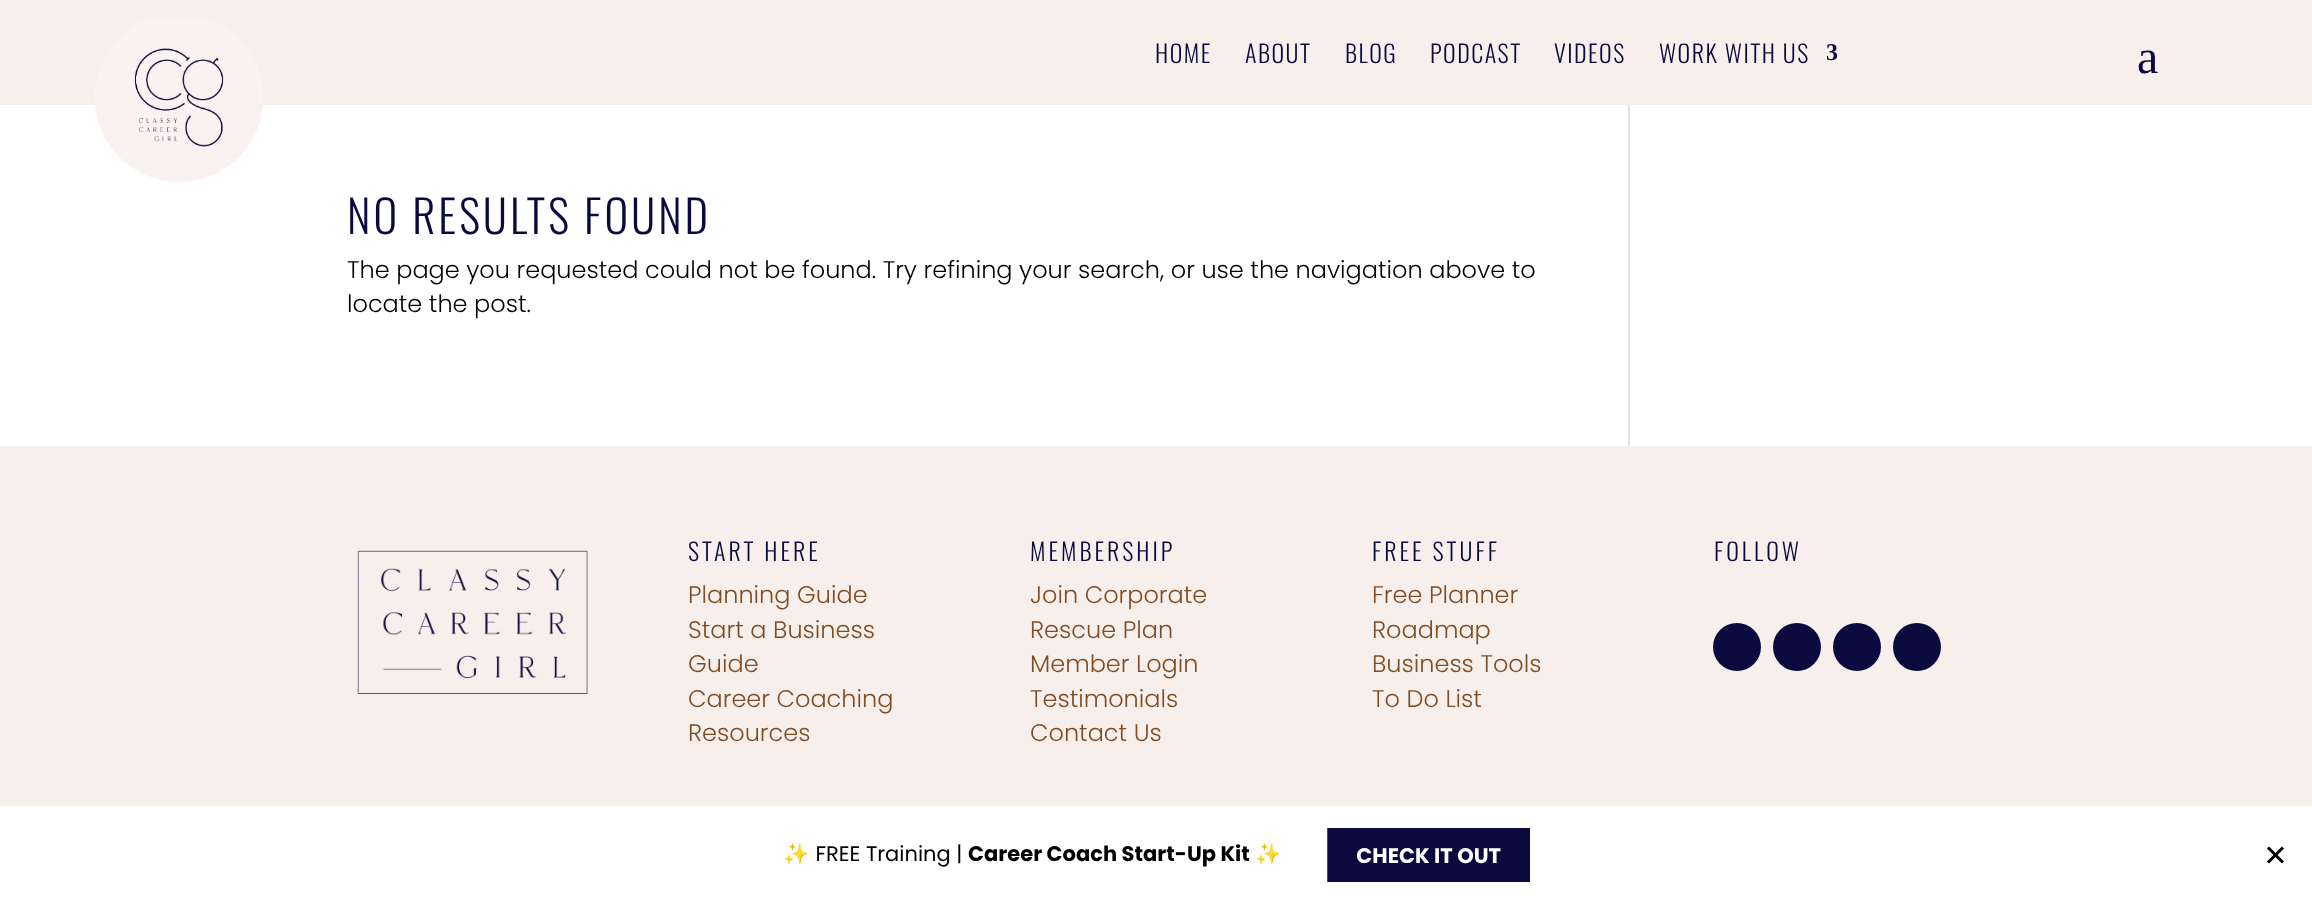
<svg xmlns="http://www.w3.org/2000/svg" width="2312" height="906">
	<rect width="100%" height="100%" fill="#FFFFFF" />
	<rect x="0" y="0" width="2312" height="105" fill="#F7EFEC" />
	<image x="95" y="19" width="168" height="163" href="assets/img1.png" />
	<g font-family="Oswald" font-size="24" font-weight="300" letter-spacing="1.5" fill="#0A0A3E">
		<text x="1155" y="63">HOME</text>
		<text x="1245" y="63">ABOUT</text>
		<text x="1345" y="63">BLOG</text>
		<text x="1430" y="63">PODCAST</text>
		<text x="1554" y="63">VIDEOS</text>
		<text x="1659" y="63">WORK WITH US</text>
	</g>
	<text x="1826" y="60" font-family="Liberation Serif" font-size="24" font-weight="700" letter-spacing="1.5" fill="#0A0A3E">3</text>
	<text x="2137" y="73" font-family="Liberation Serif" font-size="48" fill="#0A0A3E">a</text>
	<text x="347" y="234" font-family="Oswald" font-size="45" font-weight="300" letter-spacing="3" fill="#0A0A3E">NO RESULTS FOUND</text>
	<g font-family="Poppins" font-size="24" font-weight="300" fill="#000000">
		<text x="347" y="278">The page you requested could not be found. Try refining your search, or use the navigation above to</text>
		<text x="347" y="312">locate the post.</text>
	</g>
	<rect x="1628" y="105" width="2" height="341" fill="#E2E2E2" />
	<rect x="0" y="446" width="2312" height="360" fill="#F7EFEC" />
	<image x="357" y="550" width="231" height="144" href="assets/img2.png" />
	<text x="688" y="561" font-family="Oswald" font-size="24" font-weight="300" letter-spacing="3" fill="#0A0A3E">START HERE</text>
	<g font-family="Poppins" font-size="24" font-weight="300" fill="#804C23">
		<text x="688" y="603">Planning Guide</text>
		<text x="688" y="638">Start a Business</text>
		<text x="688" y="672">Guide</text>
		<text x="688" y="707">Career Coaching</text>
		<text x="688" y="741">Resources</text>
	</g>
	<text x="1030" y="561" font-family="Oswald" font-size="24" font-weight="300" letter-spacing="3" fill="#0A0A3E">MEMBERSHIP</text>
	<g font-family="Poppins" font-size="24" font-weight="300" fill="#804C23">
		<text x="1030" y="603">Join Corporate</text>
		<text x="1030" y="638">Rescue Plan</text>
		<text x="1030" y="672">Member Login</text>
		<text x="1030" y="707">Testimonials</text>
		<text x="1030" y="741">Contact Us</text>
	</g>
	<text x="1372" y="561" font-family="Oswald" font-size="24" font-weight="300" letter-spacing="3" fill="#0A0A3E">FREE STUFF</text>
	<g font-family="Poppins" font-size="24" font-weight="300" fill="#804C23">
		<text x="1372" y="603">Free Planner</text>
		<text x="1372" y="638">Roadmap</text>
		<text x="1372" y="672">Business Tools</text>
		<text x="1372" y="707">To Do List</text>
	</g>
	<text x="1714" y="561" font-family="Oswald" font-size="24" font-weight="300" letter-spacing="3" fill="#0A0A3E">FOLLOW</text>
	<circle cx="1737" cy="647" r="24" fill="#0A0A3E" />
	<circle cx="1797" cy="647" r="24" fill="#0A0A3E" />
	<circle cx="1857" cy="647" r="24" fill="#0A0A3E" />
	<circle cx="1917" cy="647" r="24" fill="#0A0A3E" />
	<image x="0" y="806" width="2312" height="100" href="assets/img3.png" />
</svg>
